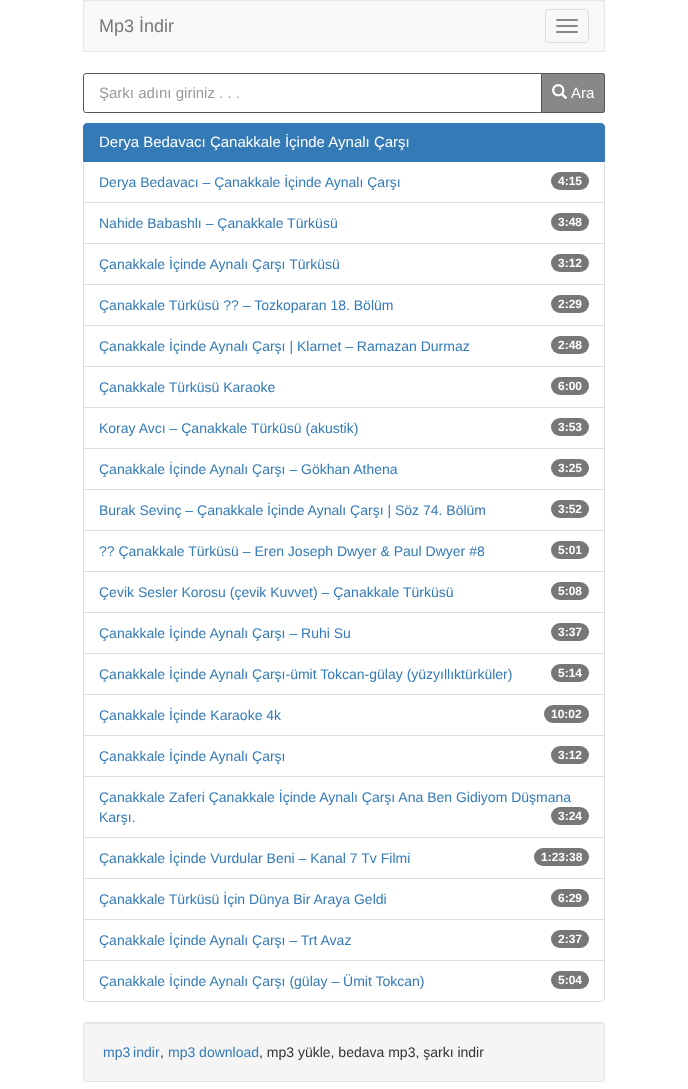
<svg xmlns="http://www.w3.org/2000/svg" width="688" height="1089">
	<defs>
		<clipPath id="clip1"><rect x="99" y="84" width="427" height="17" /></clipPath>
	</defs>
	<rect width="100%" height="100%" fill="#FFFFFF" />
	<rect x="83.5" y="0.5" width="521" height="51" fill="#F8F8F8" stroke="#E7E7E7" />
	<text x="99" y="32" font-family="Liberation Sans" font-size="18" fill="#777777">Mp3 İndir</text>
	<rect x="545.5" y="9.5" width="43" height="33" rx="3.5" fill="none" stroke="#DDDDDD" />
	<rect x="556" y="19" width="22" height="2" rx="1" fill="#888888" />
	<rect x="556" y="25" width="22" height="2" rx="1" fill="#888888" />
	<rect x="556" y="31" width="22" height="2" rx="1" fill="#888888" />
	<path d="M86 73.5H541.5V112.5H86C84.5 112.5 83.5 111.5 83.5 110V76C83.5 74.5 84.5 73.5 86 73.5Z" fill="none" stroke="#555555" />
	<g clip-path="url(#clip1)">
		<text x="99" y="98" font-family="Liberation Sans" font-size="15" fill="#999999">Şarkı adını giriniz . . .</text>
	</g>
	<path d="M542 73H602C603.5 73 605 74.5 605 76V110C605 111.5 603.5 113 602 113H542Z" fill="#888888" />
	<path d="M542 73H602C604 73 605 74 605 76V110C605 112 604 113 602 113H542ZM542 74H602C603 74 604 75 604 76V110C604 111 603 112 602 112H542Z" fill="#555555" fill-rule="evenodd" />
	<image x="552" y="84" width="16" height="15" href="assets/img1.png" />
	<text x="571" y="98" font-family="Liberation Sans" font-size="15" fill="#FFFFFF">Ara</text>
	<path d="M87 161.5H601C603 161.5 604.5 163 604.5 165V202.5H83.5V165C83.5 163 85 161.5 87 161.5Z" fill="none" stroke="#DDDDDD" />
	<path d="M87 123.5H601C603 123.5 604.5 125 604.5 127V161.5H83.5V127C83.5 125 85 123.5 87 123.5Z" fill="#337AB7" stroke="#337AB7" />
	<text x="99" y="147" font-family="Liberation Sans" font-size="15" fill="#FFFFFF">Derya Bedavacı Çanakkale İçinde Aynalı Çarşı</text>
	<text x="99" y="187" font-family="Liberation Sans" font-size="14" fill="#337AB7">Derya Bedavacı – Çanakkale İçinde Aynalı Çarşı</text>
	<rect x="551" y="172" width="38" height="18" rx="9" fill="#777777" />
	<text x="558" y="185" font-family="Liberation Sans" font-size="12" font-weight="700" fill="#FFFFFF">4:15</text>
	<rect x="83.5" y="202.5" width="521" height="41" fill="none" stroke="#DDDDDD" />
	<text x="99" y="228" font-family="Liberation Sans" font-size="14" fill="#337AB7">Nahide Babashlı – Çanakkale Türküsü</text>
	<rect x="551" y="213" width="38" height="18" rx="9" fill="#777777" />
	<text x="558" y="226" font-family="Liberation Sans" font-size="12" font-weight="700" fill="#FFFFFF">3:48</text>
	<rect x="83.5" y="243.5" width="521" height="41" fill="none" stroke="#DDDDDD" />
	<text x="99" y="269" font-family="Liberation Sans" font-size="14" fill="#337AB7">Çanakkale İçinde Aynalı Çarşı Türküsü</text>
	<rect x="551" y="254" width="38" height="18" rx="9" fill="#777777" />
	<text x="558" y="267" font-family="Liberation Sans" font-size="12" font-weight="700" fill="#FFFFFF">3:12</text>
	<rect x="83.5" y="284.5" width="521" height="41" fill="none" stroke="#DDDDDD" />
	<text x="99" y="310" font-family="Liberation Sans" font-size="14" fill="#337AB7">Çanakkale Türküsü ?? – Tozkoparan 18. Bölüm</text>
	<rect x="551" y="295" width="38" height="18" rx="9" fill="#777777" />
	<text x="558" y="308" font-family="Liberation Sans" font-size="12" font-weight="700" fill="#FFFFFF">2:29</text>
	<rect x="83.5" y="325.5" width="521" height="41" fill="none" stroke="#DDDDDD" />
	<text x="99" y="351" font-family="Liberation Sans" font-size="14" fill="#337AB7">Çanakkale İçinde Aynalı Çarşı | Klarnet – Ramazan Durmaz</text>
	<rect x="551" y="336" width="38" height="18" rx="9" fill="#777777" />
	<text x="558" y="349" font-family="Liberation Sans" font-size="12" font-weight="700" fill="#FFFFFF">2:48</text>
	<rect x="83.5" y="366.5" width="521" height="41" fill="none" stroke="#DDDDDD" />
	<text x="99" y="392" font-family="Liberation Sans" font-size="14" fill="#337AB7">Çanakkale Türküsü Karaoke</text>
	<rect x="551" y="377" width="38" height="18" rx="9" fill="#777777" />
	<text x="558" y="390" font-family="Liberation Sans" font-size="12" font-weight="700" fill="#FFFFFF">6:00</text>
	<rect x="83.5" y="407.5" width="521" height="41" fill="none" stroke="#DDDDDD" />
	<text x="99" y="433" font-family="Liberation Sans" font-size="14" fill="#337AB7">Koray Avcı – Çanakkale Türküsü (akustik)</text>
	<rect x="551" y="418" width="38" height="18" rx="9" fill="#777777" />
	<text x="558" y="431" font-family="Liberation Sans" font-size="12" font-weight="700" fill="#FFFFFF">3:53</text>
	<rect x="83.5" y="448.5" width="521" height="41" fill="none" stroke="#DDDDDD" />
	<text x="99" y="474" font-family="Liberation Sans" font-size="14" fill="#337AB7">Çanakkale İçinde Aynalı Çarşı – Gökhan Athena</text>
	<rect x="551" y="459" width="38" height="18" rx="9" fill="#777777" />
	<text x="558" y="472" font-family="Liberation Sans" font-size="12" font-weight="700" fill="#FFFFFF">3:25</text>
	<rect x="83.5" y="489.5" width="521" height="41" fill="none" stroke="#DDDDDD" />
	<text x="99" y="515" font-family="Liberation Sans" font-size="14" fill="#337AB7">Burak Sevinç – Çanakkale İçinde Aynalı Çarşı | Söz 74. Bölüm</text>
	<rect x="551" y="500" width="38" height="18" rx="9" fill="#777777" />
	<text x="558" y="513" font-family="Liberation Sans" font-size="12" font-weight="700" fill="#FFFFFF">3:52</text>
	<rect x="83.5" y="530.5" width="521" height="41" fill="none" stroke="#DDDDDD" />
	<text x="99" y="556" font-family="Liberation Sans" font-size="14" fill="#337AB7">?? Çanakkale Türküsü – Eren Joseph Dwyer &amp; Paul Dwyer #8</text>
	<rect x="551" y="541" width="38" height="18" rx="9" fill="#777777" />
	<text x="558" y="554" font-family="Liberation Sans" font-size="12" font-weight="700" fill="#FFFFFF">5:01</text>
	<rect x="83.5" y="571.5" width="521" height="41" fill="none" stroke="#DDDDDD" />
	<text x="99" y="597" font-family="Liberation Sans" font-size="14" fill="#337AB7">Çevik Sesler Korosu (çevik Kuvvet) – Çanakkale Türküsü</text>
	<rect x="551" y="582" width="38" height="18" rx="9" fill="#777777" />
	<text x="558" y="595" font-family="Liberation Sans" font-size="12" font-weight="700" fill="#FFFFFF">5:08</text>
	<rect x="83.5" y="612.5" width="521" height="41" fill="none" stroke="#DDDDDD" />
	<text x="99" y="638" font-family="Liberation Sans" font-size="14" fill="#337AB7">Çanakkale İçinde Aynalı Çarşı – Ruhi Su</text>
	<rect x="551" y="623" width="38" height="18" rx="9" fill="#777777" />
	<text x="558" y="636" font-family="Liberation Sans" font-size="12" font-weight="700" fill="#FFFFFF">3:37</text>
	<rect x="83.5" y="653.5" width="521" height="41" fill="none" stroke="#DDDDDD" />
	<text x="99" y="679" font-family="Liberation Sans" font-size="14" fill="#337AB7">Çanakkale İçinde Aynalı Çarşı-ümit Tokcan-gülay (yüzyıllıktürküler)</text>
	<rect x="551" y="664" width="38" height="18" rx="9" fill="#777777" />
	<text x="558" y="677" font-family="Liberation Sans" font-size="12" font-weight="700" fill="#FFFFFF">5:14</text>
	<rect x="83.5" y="694.5" width="521" height="41" fill="none" stroke="#DDDDDD" />
	<text x="99" y="720" font-family="Liberation Sans" font-size="14" fill="#337AB7">Çanakkale İçinde Karaoke 4k</text>
	<rect x="544" y="705" width="45" height="18" rx="9" fill="#777777" />
	<text x="551" y="718" font-family="Liberation Sans" font-size="12" font-weight="700" fill="#FFFFFF">10:02</text>
	<rect x="83.5" y="735.5" width="521" height="41" fill="none" stroke="#DDDDDD" />
	<text x="99" y="761" font-family="Liberation Sans" font-size="14" fill="#337AB7">Çanakkale İçinde Aynalı Çarşı</text>
	<rect x="551" y="746" width="38" height="18" rx="9" fill="#777777" />
	<text x="558" y="759" font-family="Liberation Sans" font-size="12" font-weight="700" fill="#FFFFFF">3:12</text>
	<rect x="83.5" y="776.5" width="521" height="61" fill="none" stroke="#DDDDDD" />
	<g font-family="Liberation Sans" font-size="14" fill="#337AB7">
		<text x="99" y="802">Çanakkale Zaferi Çanakkale İçinde Aynalı Çarşı Ana Ben Gidiyom Düşmana</text>
		<text x="99" y="822">Karşı.</text>
	</g>
	<rect x="551" y="807" width="38" height="18" rx="9" fill="#777777" />
	<text x="558" y="820" font-family="Liberation Sans" font-size="12" font-weight="700" fill="#FFFFFF">3:24</text>
	<rect x="83.5" y="837.5" width="521" height="41" fill="none" stroke="#DDDDDD" />
	<text x="99" y="863" font-family="Liberation Sans" font-size="14" fill="#337AB7">Çanakkale İçinde Vurdular Beni – Kanal 7 Tv Filmi</text>
	<rect x="534" y="848" width="55" height="18" rx="9" fill="#777777" />
	<text x="541" y="861" font-family="Liberation Sans" font-size="12" font-weight="700" fill="#FFFFFF">1:23:38</text>
	<rect x="83.5" y="878.5" width="521" height="41" fill="none" stroke="#DDDDDD" />
	<text x="99" y="904" font-family="Liberation Sans" font-size="14" fill="#337AB7">Çanakkale Türküsü İçin Dünya Bir Araya Geldi</text>
	<rect x="551" y="889" width="38" height="18" rx="9" fill="#777777" />
	<text x="558" y="902" font-family="Liberation Sans" font-size="12" font-weight="700" fill="#FFFFFF">6:29</text>
	<rect x="83.5" y="919.5" width="521" height="41" fill="none" stroke="#DDDDDD" />
	<text x="99" y="945" font-family="Liberation Sans" font-size="14" fill="#337AB7">Çanakkale İçinde Aynalı Çarşı – Trt Avaz</text>
	<rect x="551" y="930" width="38" height="18" rx="9" fill="#777777" />
	<text x="558" y="943" font-family="Liberation Sans" font-size="12" font-weight="700" fill="#FFFFFF">2:37</text>
	<path d="M83.5 960.5H604.5V998C604.5 1000 603 1001.5 601 1001.5H87C85 1001.5 83.5 1000 83.5 998Z" fill="#FFFFFF" stroke="#DDDDDD" />
	<text x="99" y="986" font-family="Liberation Sans" font-size="14" fill="#337AB7">Çanakkale İçinde Aynalı Çarşı (gülay – Ümit Tokcan)</text>
	<rect x="551" y="971" width="38" height="18" rx="9" fill="#777777" />
	<text x="558" y="984" font-family="Liberation Sans" font-size="12" font-weight="700" fill="#FFFFFF">5:04</text>
	<rect x="83" y="1022" width="522" height="60" rx="4" fill="#F5F5F5" />
	<path d="M87 1024H601C603 1024 604 1025 604 1027V1025L602 1023H87C85 1023 84 1025 84 1027C84 1025 85 1024 87 1024Z" fill="#E9E9E9" />
	<rect x="83.5" y="1022.5" width="521" height="59" rx="3.5" fill="none" stroke="#E3E3E3" />
	<text x="103" y="1057" word-spacing="-1" font-family="Liberation Sans" font-size="14" fill="#337AB7">mp3 indir</text>
	<text x="160" y="1057" font-family="Liberation Sans" font-size="14" fill="#333333">,</text>
	<text x="168" y="1057" font-family="Liberation Sans" font-size="14" fill="#337AB7">mp3 download</text>
	<text x="259" y="1057" font-family="Liberation Sans" font-size="14" fill="#333333">, mp3 yükle, bedava mp3, şarkı indir</text>
</svg>
